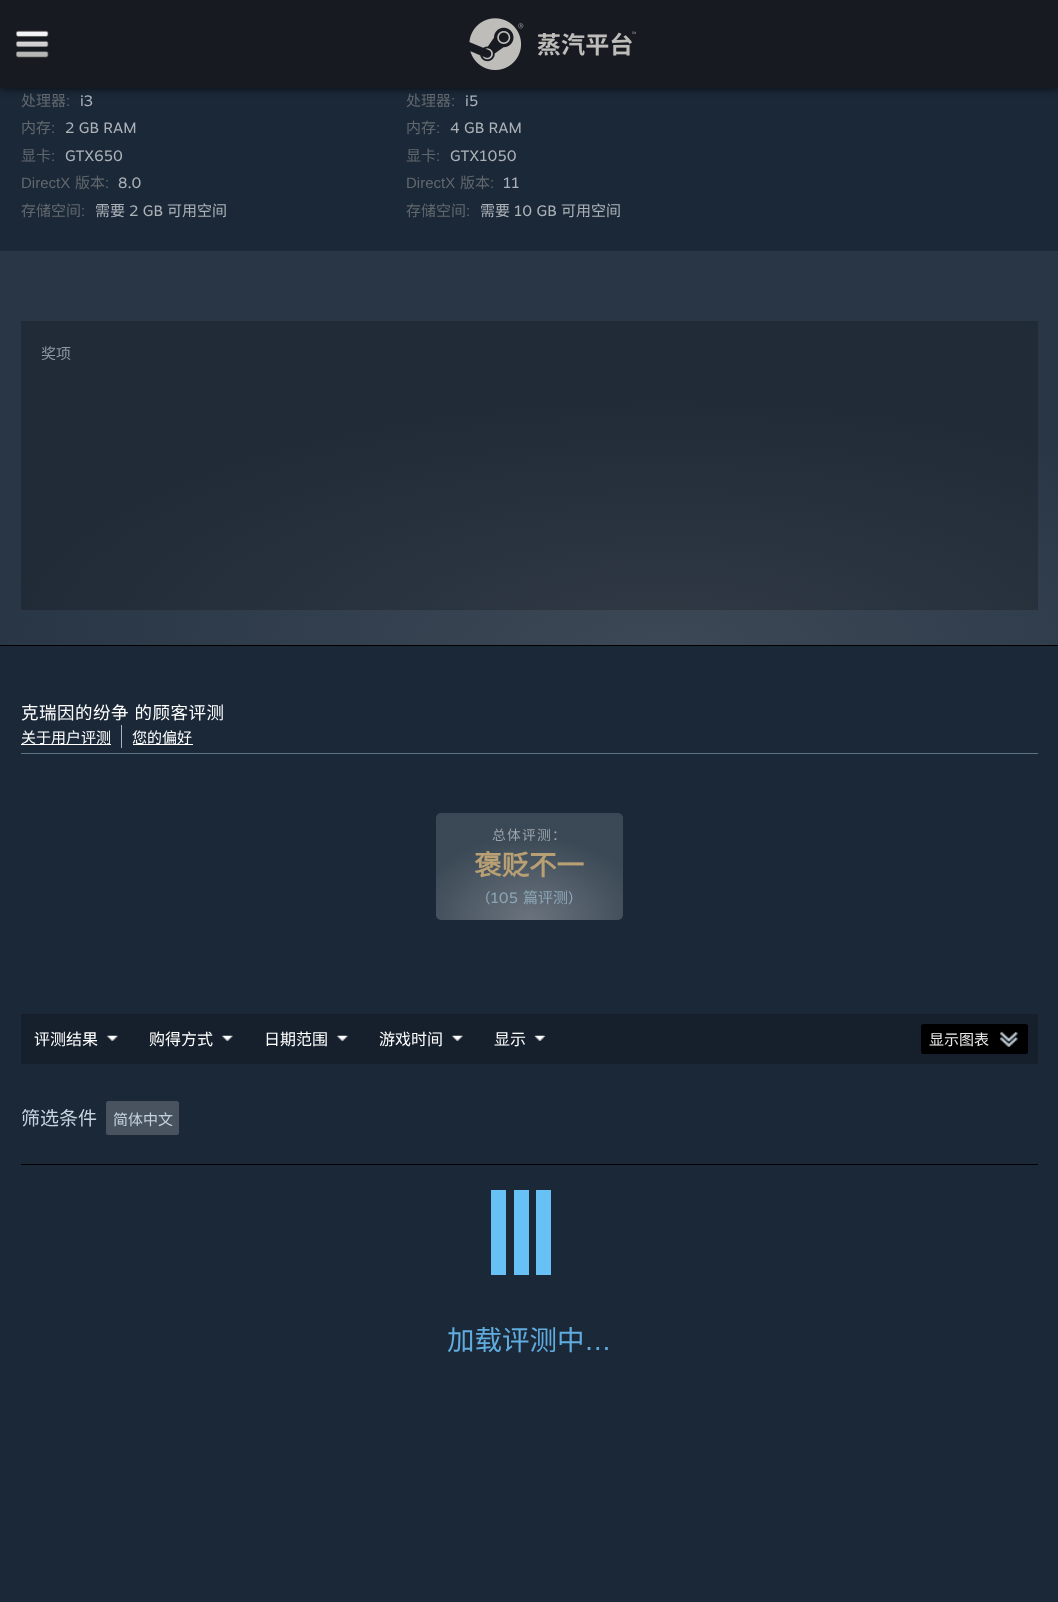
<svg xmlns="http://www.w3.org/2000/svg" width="1058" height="1602">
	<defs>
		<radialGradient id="g1" gradientUnits="userSpaceOnUse" cx="0" cy="0" r="1" gradientTransform="matrix(664 0 0 247 664 645)"><stop offset="0" stop-color="#3D4856" /><stop offset="1" stop-color="#283645" /></radialGradient>
		<radialGradient id="g2" gradientUnits="userSpaceOnUse" cx="0" cy="0" r="1" gradientTransform="matrix(664 0 0 247 664 645)"><stop offset="0" stop-color="#313A45" /><stop offset="1" stop-color="#202B37" /></radialGradient>
		<radialGradient id="g3" gradientUnits="userSpaceOnUse" cx="0" cy="0" r="1" gradientTransform="matrix(117 0 0 85 529 920)"><stop offset="0" stop-color="#FFFFFF" stop-opacity="0.35" /><stop offset="1" stop-color="#74858C" stop-opacity="0.35" /></radialGradient>
	</defs>
	<rect width="100%" height="100%" fill="#1B2838" />
	<rect x="0" y="0" width="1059" height="88" fill="#000000" fill-opacity="0.75" filter="blur(4.5px)" />
	<rect x="0" y="0" width="1058" height="88" fill="#171A21" />
	<image x="16" y="30" width="33" height="28" href="assets/img1.png" />
	<image x="469" y="18" width="167" height="52" href="assets/img2.png" />
	<text x="21" y="106" font-family="Noto Sans CJK SC" font-size="15" fill="#61686D">处理器</text>
	<text x="66" y="106" font-family="Liberation Sans" font-size="15" fill="#61686D">:</text>
	<text x="80" y="106" font-family="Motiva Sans" font-size="15" fill="#ACB2B8">i3</text>
	<text x="21" y="133" font-family="Noto Sans CJK SC" font-size="15" fill="#61686D">内存</text>
	<text x="51" y="133" font-family="Liberation Sans" font-size="15" fill="#61686D">:</text>
	<text x="65" y="133" font-family="Motiva Sans" font-size="15" fill="#ACB2B8">2 GB RAM</text>
	<text x="21" y="161" font-family="Noto Sans CJK SC" font-size="15" fill="#61686D">显卡</text>
	<text x="51" y="161" font-family="Liberation Sans" font-size="15" fill="#61686D">:</text>
	<text x="65" y="161" font-family="Motiva Sans" font-size="15" fill="#ACB2B8">GTX650</text>
	<text x="21" y="188" font-family="Liberation Sans" font-size="15" fill="#61686D">DirectX</text>
	<text x="75" y="188" font-family="Noto Sans CJK SC" font-size="15" fill="#61686D">版本</text>
	<text x="105" y="188" font-family="Liberation Sans" font-size="15" fill="#61686D">:</text>
	<text x="118" y="188" font-family="Motiva Sans" font-size="15" fill="#ACB2B8">8.0</text>
	<text x="21" y="216" font-family="Noto Sans CJK SC" font-size="15" fill="#61686D">存储空间</text>
	<text x="81" y="216" font-family="Liberation Sans" font-size="15" fill="#61686D">:</text>
	<text x="95" y="216" font-family="Noto Sans CJK SC" font-size="15" fill="#ACB2B8">需要</text>
	<text x="129" y="216" font-family="Motiva Sans" font-size="15" fill="#ACB2B8">2 GB</text>
	<text x="167" y="216" font-family="Noto Sans CJK SC" font-size="15" fill="#ACB2B8">可用空间</text>
	<text x="406" y="106" font-family="Noto Sans CJK SC" font-size="15" fill="#61686D">处理器</text>
	<text x="451" y="106" font-family="Liberation Sans" font-size="15" fill="#61686D">:</text>
	<text x="465" y="106" font-family="Motiva Sans" font-size="15" fill="#ACB2B8">i5</text>
	<text x="406" y="133" font-family="Noto Sans CJK SC" font-size="15" fill="#61686D">内存</text>
	<text x="436" y="133" font-family="Liberation Sans" font-size="15" fill="#61686D">:</text>
	<text x="450" y="133" font-family="Motiva Sans" font-size="15" fill="#ACB2B8">4 GB RAM</text>
	<text x="406" y="161" font-family="Noto Sans CJK SC" font-size="15" fill="#61686D">显卡</text>
	<text x="436" y="161" font-family="Liberation Sans" font-size="15" fill="#61686D">:</text>
	<text x="450" y="161" font-family="Motiva Sans" font-size="15" fill="#ACB2B8">GTX1050</text>
	<text x="406" y="188" font-family="Liberation Sans" font-size="15" fill="#61686D">DirectX</text>
	<text x="460" y="188" font-family="Noto Sans CJK SC" font-size="15" fill="#61686D">版本</text>
	<text x="490" y="188" font-family="Liberation Sans" font-size="15" fill="#61686D">:</text>
	<text x="503" y="188" font-family="Motiva Sans" font-size="15" fill="#ACB2B8">11</text>
	<text x="406" y="216" font-family="Noto Sans CJK SC" font-size="15" fill="#61686D">存储空间</text>
	<text x="466" y="216" font-family="Liberation Sans" font-size="15" fill="#61686D">:</text>
	<text x="480" y="216" font-family="Noto Sans CJK SC" font-size="15" fill="#ACB2B8">需要</text>
	<text x="514" y="216" font-family="Motiva Sans" font-size="15" fill="#ACB2B8">10 GB</text>
	<text x="561" y="216" font-family="Noto Sans CJK SC" font-size="15" fill="#ACB2B8">可用空间</text>
	<rect x="0" y="251" width="1058" height="394" fill="url(#g1)" />
	<rect x="21" y="321" width="1017" height="289" fill="url(#g2)" />
	<text x="41" y="359" font-family="Noto Sans CJK SC" font-size="15" fill="#8F98A0">奖项</text>
	<rect x="0" y="645" width="1058" height="1" fill="#000000" />
	<rect x="21" y="753" width="1017" height="1" fill="#5B7381" />
	<text x="21" y="719" word-spacing="1" font-family="Noto Sans CJK SC" font-size="17.5" letter-spacing="0.5" fill="#FFFFFF">克瑞因的纷争 的顾客评测</text>
	<rect x="21" y="744" width="90" height="1" fill="#FFFFFF" />
	<text x="21" y="743" font-family="Noto Sans CJK SC" font-size="15" fill="#FFFFFF">关于用户评测</text>
	<rect x="121" y="725" width="1" height="23" fill="#9FB4C9" />
	<rect x="133" y="744" width="60" height="1" fill="#FFFFFF" />
	<text x="132" y="743" font-family="Noto Sans CJK SC" font-size="15" fill="#FFFFFF">您的偏好</text>
	<rect x="436" y="813" width="187" height="107" rx="5" fill="url(#g3)" />
	<text x="492" y="840" font-family="Noto Sans CJK SC" font-size="13.75" letter-spacing="1.25" fill="#9BA3AB">总体评测：</text>
	<text x="474" y="875" font-family="Noto Sans CJK SC" font-size="27.5" font-weight="700" fill="#B9A074">褒贬不一</text>
	<text x="485" y="903" font-family="Motiva Sans" font-size="15" fill="#8BA6B6">(105</text>
	<text x="523" y="903" font-family="Noto Sans CJK SC" font-size="15" fill="#8BA6B6">篇评测</text>
	<text x="568" y="903" font-family="Motiva Sans" font-size="15" fill="#8BA6B6">)</text>
	<rect x="21" y="1014" width="1017" height="50" fill="#16202D" />
	<image x="106" y="1035" width="12" height="6" href="assets/img3.png" />
	<text x="34" y="1045" font-family="Noto Sans CJK SC" font-size="16" fill="#FFFFFF">评测结果</text>
	<image x="221" y="1035" width="12" height="6" href="assets/img3.png" />
	<text x="149" y="1045" font-family="Noto Sans CJK SC" font-size="16" fill="#FFFFFF">购得方式</text>
	<image x="336" y="1035" width="12" height="6" href="assets/img3.png" />
	<text x="264" y="1045" font-family="Noto Sans CJK SC" font-size="16" fill="#FFFFFF">日期范围</text>
	<image x="451" y="1035" width="12" height="6" href="assets/img4.png" />
	<text x="379" y="1045" font-family="Noto Sans CJK SC" font-size="16" fill="#FFFFFF">游戏时间</text>
	<image x="534" y="1035" width="12" height="6" href="assets/img5.png" />
	<text x="494" y="1045" font-family="Noto Sans CJK SC" font-size="16" fill="#FFFFFF">显示</text>
	<rect x="921" y="1024" width="107" height="30" rx="2.5" fill="#000000" />
	<text x="929" y="1045" font-family="Noto Sans CJK SC" font-size="15" fill="#EBEBEB">显示图表</text>
	<image x="1000" y="1031" width="18" height="16" href="assets/img6.png" />
	<rect x="21" y="1164" width="1017" height="1" fill="#000000" />
	<text x="21" y="1125" font-family="Noto Sans CJK SC" font-size="19" fill="#C6D4DF">筛选条件</text>
	<rect x="106" y="1101" width="73" height="34" rx="2.5" fill="#495360" />
	<text x="113" y="1125" font-family="Noto Sans CJK SC" font-size="15" fill="#C6D4DF">简体中文</text>
	<rect x="491" y="1190" width="15" height="85" fill="#67C1F5" />
	<rect x="514" y="1190" width="15" height="85" fill="#67C1F5" />
	<rect x="536" y="1190" width="15" height="85" fill="#67C1F5" />
	<text x="447" y="1350" font-family="Noto Sans CJK SC" font-size="27.5" fill="#60ACDE">加载评测中</text>
	<text x="584" y="1350" font-family="Liberation Sans" font-size="27.5" fill="#60ACDE">…</text>
</svg>
